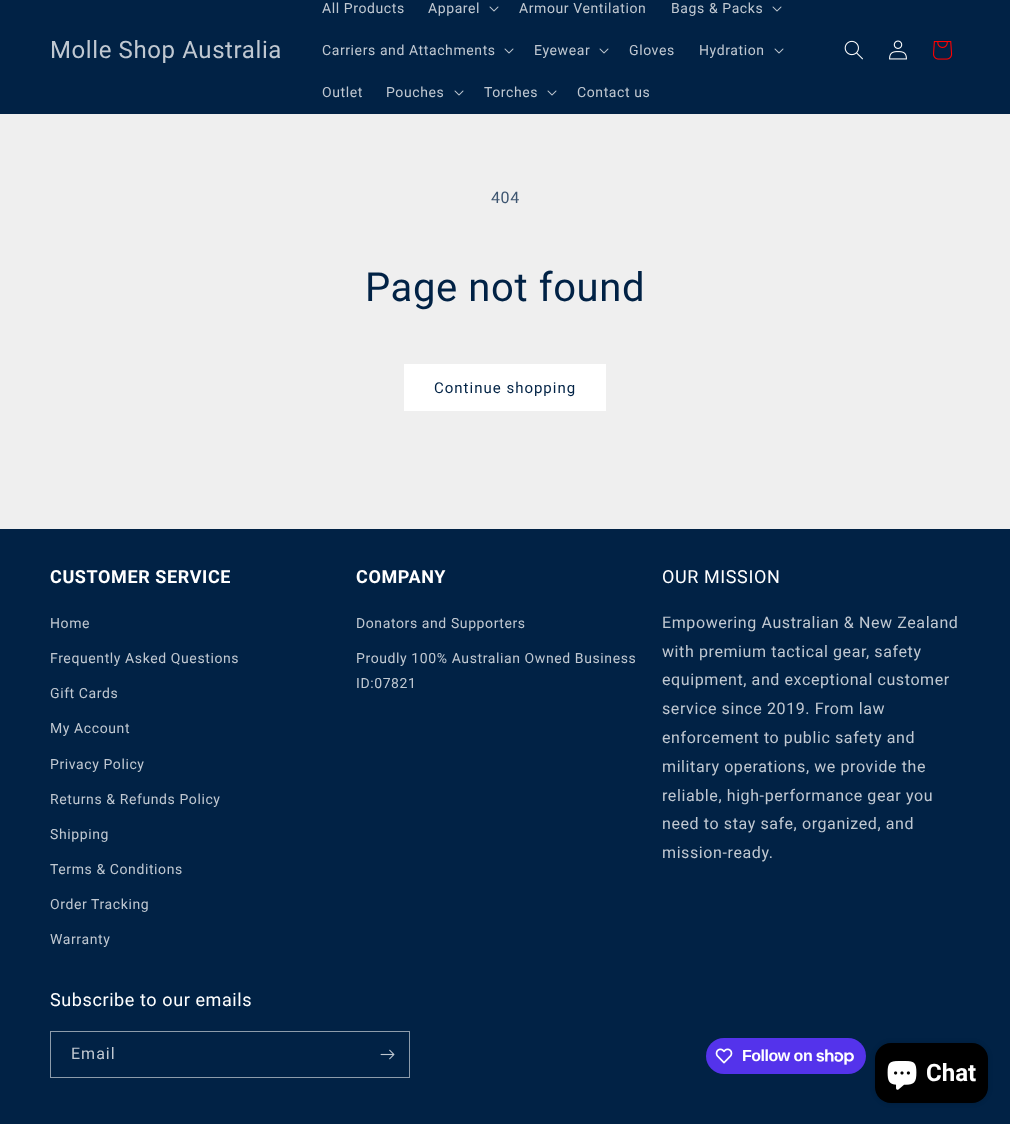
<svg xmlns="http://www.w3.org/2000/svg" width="1010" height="1124">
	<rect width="100%" height="100%" fill="#EFEFEF" />
	<rect x="0" y="0" width="1010" height="114" fill="#012245" />
	<text x="50" y="58" font-family="Roboto" font-size="24" letter-spacing="0.6" fill="#C0C8D1">Molle Shop Australia</text>
	<g font-family="Roboto" font-size="14" letter-spacing="0.6" fill="#C0C8D1">
		<text x="322" y="13">All Products</text>
		<text x="428" y="13">Apparel</text>
	</g>
	<image x="489" y="6" width="10" height="6" href="assets/img1.png" />
	<g font-family="Roboto" font-size="14" letter-spacing="0.6" fill="#C0C8D1">
		<text x="519" y="13">Armour Ventilation</text>
		<text x="671" y="13">Bags &amp; Packs</text>
	</g>
	<image x="772" y="6" width="10" height="6" href="assets/img1.png" />
	<text x="322" y="55" font-family="Roboto" font-size="14" letter-spacing="0.6" fill="#C0C8D1">Carriers and Attachments</text>
	<image x="504" y="48" width="10" height="6" href="assets/img1.png" />
	<text x="534" y="55" font-family="Roboto" font-size="14" letter-spacing="0.6" fill="#C0C8D1">Eyewear</text>
	<image x="599" y="48" width="10" height="6" href="assets/img1.png" />
	<g font-family="Roboto" font-size="14" letter-spacing="0.6" fill="#C0C8D1">
		<text x="629" y="55">Gloves</text>
		<text x="699" y="55">Hydration</text>
	</g>
	<image x="774" y="48" width="10" height="6" href="assets/img1.png" />
	<g font-family="Roboto" font-size="14" letter-spacing="0.6" fill="#C0C8D1">
		<text x="322" y="97">Outlet</text>
		<text x="386" y="97">Pouches</text>
	</g>
	<image x="454" y="90" width="10" height="6" href="assets/img1.png" />
	<text x="484" y="97" font-family="Roboto" font-size="14" letter-spacing="0.6" fill="#C0C8D1">Torches</text>
	<image x="547" y="90" width="10" height="6" href="assets/img1.png" />
	<text x="577" y="97" font-family="Roboto" font-size="14" letter-spacing="0.6" fill="#C0C8D1">Contact us</text>
	<image x="844" y="40" width="19" height="20" href="assets/img2.png" />
	<image x="889" y="40" width="18" height="20" href="assets/img3.png" />
	<image x="933" y="41" width="20" height="19" href="assets/img4.png" />
	<text x="491" y="203" font-family="Roboto" font-size="16" letter-spacing="0.6" fill="#3D5570">404</text>
	<text x="365" y="301" font-family="Roboto" font-size="40" letter-spacing="0.6" fill="#012245">Page not found</text>
	<rect x="404" y="364" width="202" height="47" fill="#FFFFFF" />
	<text x="434" y="393" font-family="Roboto" font-size="15" letter-spacing="1" fill="#012245">Continue shopping</text>
	<rect x="0" y="529" width="1010" height="595" fill="#012245" />
	<text x="50" y="583" font-family="Roboto" font-size="18" font-weight="700" letter-spacing="0.6" fill="#FFFFFF">CUSTOMER SERVICE</text>
	<g font-family="Roboto" font-size="14" letter-spacing="0.6" fill="#C0C8D1">
		<text x="50" y="628">Home</text>
		<text x="50" y="663">Frequently Asked Questions</text>
		<text x="50" y="698">Gift Cards</text>
		<text x="50" y="733">My Account</text>
		<text x="50" y="769">Privacy Policy</text>
		<text x="50" y="804">Returns &amp; Refunds Policy</text>
		<text x="50" y="839">Shipping</text>
		<text x="50" y="874">Terms &amp; Conditions</text>
		<text x="50" y="909">Order Tracking</text>
		<text x="50" y="944">Warranty</text>
	</g>
	<text x="356" y="583" font-family="Roboto" font-size="18" font-weight="700" letter-spacing="0.6" fill="#FFFFFF">COMPANY</text>
	<g font-family="Roboto" font-size="14" letter-spacing="0.6" fill="#C0C8D1">
		<text x="356" y="628">Donators and Supporters</text>
		<text x="356" y="663">Proudly 100% Australian Owned Business</text>
		<text x="356" y="688">ID:07821</text>
	</g>
	<text x="662" y="583" font-family="Roboto" font-size="18" letter-spacing="0.6" fill="#FFFFFF">OUR MISSION</text>
	<g font-family="Roboto" font-size="16" letter-spacing="0.6" fill="#C0C8D1">
		<text x="662" y="628">Empowering Australian &amp; New Zealand</text>
		<text x="662" y="657">with premium tactical gear, safety</text>
		<text x="662" y="685">equipment, and exceptional customer</text>
		<text x="662" y="714">service since 2019. From law</text>
		<text x="662" y="743">enforcement to public safety and</text>
		<text x="662" y="772">military operations, we provide the</text>
		<text x="662" y="801">reliable, high-performance gear you</text>
		<text x="662" y="829">need to stay safe, organized, and</text>
		<text x="662" y="858">mission-ready.</text>
	</g>
	<text x="50" y="1006" font-family="Roboto" font-size="18" letter-spacing="0.6" fill="#FFFFFF">Subscribe to our emails</text>
	<rect x="50.5" y="1031.5" width="359" height="46" fill="none" stroke="#8D9CAB" />
	<text x="71" y="1059" font-family="Roboto" font-size="16" letter-spacing="1" fill="#C0C8D1">Email</text>
	<image x="380" y="1049" width="15" height="11" href="assets/img5.png" />
	<rect x="706" y="1038" width="160" height="36" rx="18" fill="#5433EB" />
	<image x="715" y="1048" width="18" height="16" href="assets/img6.png" />
	<text x="742" y="1061" font-family="Liberation Sans" font-size="16" font-weight="700" letter-spacing="-0.5" fill="#FFFFFF">Follow on</text>
	<image x="816" y="1049" width="38" height="16" href="assets/img7.png" />
	<rect x="875" y="1043" width="113" height="60" rx="16" fill="#000000" fill-opacity="0.15" filter="blur(2.5px)" />
	<rect x="875" y="1043" width="113" height="60" rx="16" fill="#000000" />
	<image x="887" y="1061" width="30" height="29" href="assets/img8.png" />
	<text x="926" y="1081" font-family="Roboto" font-size="24" font-weight="700" fill="#FFFFFF">Chat</text>
</svg>
